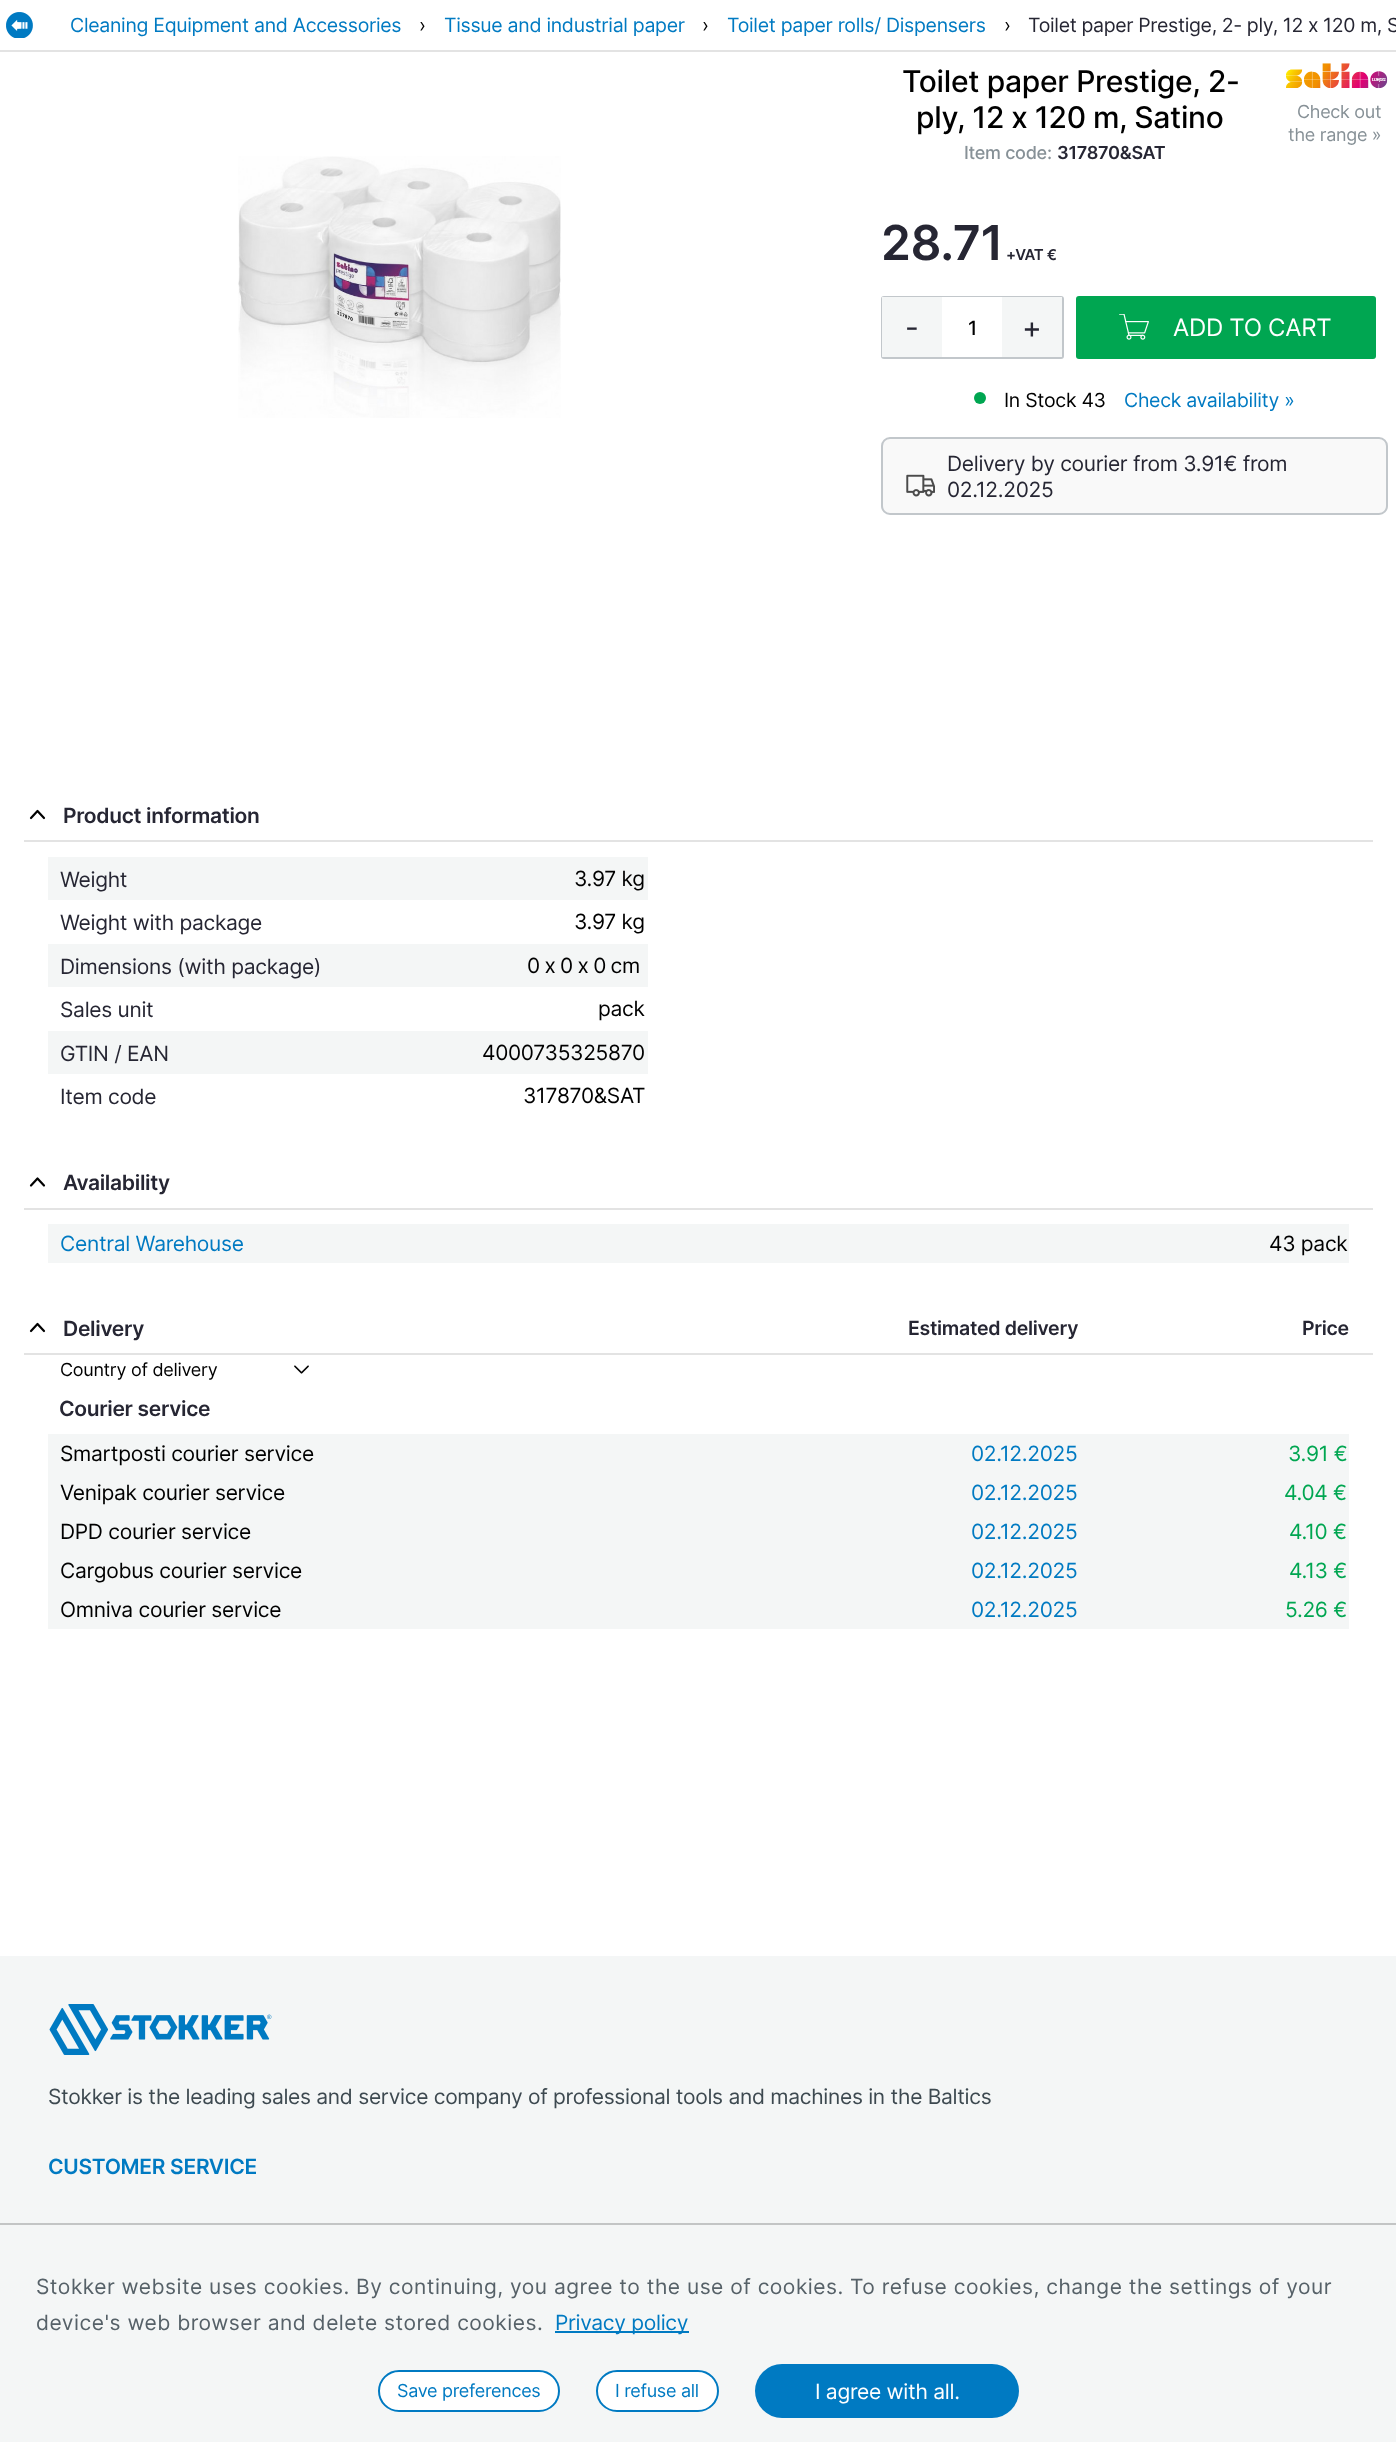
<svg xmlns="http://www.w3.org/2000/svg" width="1396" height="2442">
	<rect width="100%" height="100%" fill="#FFFFFF" />
	<rect x="0" y="50" width="1396" height="2" fill="#E3E3E3" />
	<image x="6" y="12" width="27" height="26" href="assets/img1.png" />
	<text x="70" y="32" font-family="Inter" font-size="19.5" letter-spacing="-0.3" fill="#007AC2">Cleaning Equipment and Accessories</text>
	<text x="419" y="32" font-family="Inter" font-size="19.5" letter-spacing="-0.3" fill="#000000">›</text>
	<text x="444" y="32" font-family="Inter" font-size="19.5" letter-spacing="-0.3" fill="#007AC2">Tissue and industrial paper</text>
	<text x="702" y="32" font-family="Inter" font-size="19.5" letter-spacing="-0.3" fill="#000000">›</text>
	<text x="727" y="32" font-family="Inter" font-size="19.5" letter-spacing="-0.3" fill="#007AC2">Toilet paper rolls/ Dispensers</text>
	<text x="1004" y="32" font-family="Inter" font-size="19.5" letter-spacing="-0.3" fill="#000000">›</text>
	<text x="1028" y="32" word-spacing="-0.25" font-family="Inter" font-size="19.5" letter-spacing="-0.3" fill="#262633">Toilet paper Prestige, 2- ply, 12 x 120 m, S</text>
	<image x="238" y="156" width="323" height="262" href="assets/img2.png" />
	<g font-family="Inter" font-size="30" font-weight="500" letter-spacing="-0.3" fill="#000000">
		<text x="902" y="92">Toilet paper Prestige, 2-</text>
		<text x="916" y="128" word-spacing="-0.5">ply, 12 x 120 m, Satino</text>
	</g>
	<text x="964" y="159" font-family="Inter" font-size="18" font-weight="500" letter-spacing="-0.3" fill="#879197">Item code:</text>
	<text x="1057" y="159" font-family="Inter" font-size="18" font-weight="600" letter-spacing="-0.3" fill="#262633">317870&amp;SAT</text>
	<image x="1286" y="63" width="102" height="26" href="assets/img3.png" />
	<g font-family="Inter" font-size="18" letter-spacing="-0.3" fill="#879197">
		<text x="1297" y="118">Check out</text>
		<text x="1288" y="141">the range »</text>
	</g>
	<text x="881" y="260" font-family="Inter" font-size="48" font-weight="600" letter-spacing="-0.3" fill="#262633">28.71</text>
	<text x="1006" y="260" font-family="Inter" font-size="15" font-weight="600" letter-spacing="-0.3" fill="#262633">+VAT €</text>
	<rect x="882" y="297" width="181" height="61" rx="2" fill="none" stroke="#C2C7CB" stroke-width="2" />
	<rect x="882" y="297" width="60" height="60" fill="#F4F6F6" />
	<text x="905" y="338" font-family="Inter" font-size="30" letter-spacing="-0.3" fill="#262633">-</text>
	<rect x="942" y="297" width="60" height="1" fill="#FFFFFF" />
	<text x="968" y="335" font-family="Inter" font-size="19.5" font-weight="500" letter-spacing="-0.3" fill="#000000">1</text>
	<rect x="1002" y="297" width="60" height="60" fill="#F4F6F6" />
	<text x="1022" y="338" font-family="Inter" font-size="30" letter-spacing="-0.3" fill="#262633">+</text>
	<rect x="1076" y="296" width="300" height="63" rx="3" fill="#00A651" />
	<image x="1119" y="314" width="30" height="26" href="assets/img4.png" />
	<text x="1173" y="336" font-family="Inter" font-size="24" letter-spacing="-0.3" fill="#FFFFFF">ADD TO CART</text>
	<circle cx="980" cy="398" r="6" fill="#00A651" />
	<text x="1004" y="407" font-family="Inter" font-size="19.5" letter-spacing="-0.3" fill="#000000">In Stock 43</text>
	<text x="1124" y="407" font-family="Inter" font-size="19.5" letter-spacing="-0.3" fill="#007AC2">Check availability »</text>
	<rect x="882" y="438" width="505" height="76" rx="8" fill="#F9F9F9" stroke="#C2C7CB" stroke-width="2" />
	<image x="906" y="474" width="29" height="23" href="assets/img5.png" />
	<g font-family="Inter" font-size="21" letter-spacing="-0.3" fill="#262633">
		<text x="947" y="471">Delivery by courier from 3.91€ from</text>
		<text x="947" y="497">02.12.2025</text>
	</g>
	<rect x="24" y="840" width="1349" height="2" fill="#E3E3E3" />
	<path d="M44 818L37.5 811L31 818" fill="none" stroke="#000000" stroke-width="2.2" stroke-linecap="round" stroke-linejoin="round" />
	<text x="63" y="823" font-family="Inter" font-size="21" font-weight="600" letter-spacing="-0.3" fill="#262633">Product information</text>
	<rect x="48" y="857" width="600" height="43" fill="#F4F6F6" />
	<text x="60" y="887" font-family="Inter" font-size="21" letter-spacing="-0.3" fill="#262633">Weight</text>
	<text x="574" y="886" font-family="Inter" font-size="21" letter-spacing="-0.3" fill="#000000">3.97 kg</text>
	<text x="60" y="930" font-family="Inter" font-size="21" letter-spacing="-0.3" fill="#262633">Weight with package</text>
	<text x="574" y="929" font-family="Inter" font-size="21" letter-spacing="-0.3" fill="#000000">3.97 kg</text>
	<rect x="48" y="944" width="600" height="43" fill="#F4F6F6" />
	<text x="60" y="974" font-family="Inter" font-size="21" letter-spacing="-0.3" fill="#262633">Dimensions (with package)</text>
	<text x="527" y="973" word-spacing="-1" font-family="Inter" font-size="21" letter-spacing="-0.3" fill="#000000">0 x 0 x 0 cm</text>
	<text x="60" y="1017" font-family="Inter" font-size="21" letter-spacing="-0.3" fill="#262633">Sales unit</text>
	<text x="598" y="1016" font-family="Inter" font-size="21" letter-spacing="-0.3" fill="#000000">pack</text>
	<rect x="48" y="1031" width="600" height="43" fill="#F4F6F6" />
	<text x="60" y="1061" font-family="Inter" font-size="21" letter-spacing="-0.3" fill="#262633">GTIN / EAN</text>
	<text x="482" y="1060" font-family="Inter" font-size="21" letter-spacing="-0.3" fill="#000000">4000735325870</text>
	<text x="60" y="1104" font-family="Inter" font-size="21" letter-spacing="-0.3" fill="#262633">Item code</text>
	<text x="523" y="1103" font-family="Inter" font-size="21" letter-spacing="-0.3" fill="#000000">317870&amp;SAT</text>
	<rect x="24" y="1208" width="1349" height="2" fill="#E3E3E3" />
	<path d="M44 1185.5L37.5 1178.5L31 1185.5" fill="none" stroke="#000000" stroke-width="2.2" stroke-linecap="round" stroke-linejoin="round" />
	<text x="63" y="1190" font-family="Inter" font-size="21" font-weight="600" letter-spacing="-0.3" fill="#262633">Availability</text>
	<rect x="48" y="1224" width="1301" height="39" fill="#F4F6F6" />
	<text x="60" y="1251" font-family="Inter" font-size="21" letter-spacing="-0.3" fill="#007AC2">Central Warehouse</text>
	<text x="1269" y="1251" font-family="Inter" font-size="21" letter-spacing="-0.3" fill="#000000">43 pack</text>
	<rect x="24" y="1353" width="1349" height="2" fill="#E3E3E3" />
	<path d="M44 1331L37.5 1324L31 1331" fill="none" stroke="#000000" stroke-width="2.2" stroke-linecap="round" stroke-linejoin="round" />
	<text x="63" y="1336" font-family="Inter" font-size="21" font-weight="600" letter-spacing="-0.3" fill="#262633">Delivery</text>
	<g font-family="Inter" font-size="19.5" font-weight="600" letter-spacing="-0.3" fill="#262633">
		<text x="908" y="1335">Estimated delivery</text>
		<text x="1302" y="1335">Price</text>
	</g>
	<text x="60" y="1376" font-family="Inter" font-size="18" letter-spacing="-0.3" fill="#000000">Country of delivery</text>
	<image x="294" y="1365" width="15" height="9" href="assets/img6.png" />
	<text x="59" y="1416" font-family="Inter" font-size="21" font-weight="600" letter-spacing="-0.3" fill="#262633">Courier service</text>
	<rect x="48" y="1434" width="1301" height="195" fill="#F4F6F6" />
	<text x="60" y="1461" font-family="Inter" font-size="21" letter-spacing="-0.3" fill="#000000">Smartposti courier service</text>
	<text x="971" y="1461" font-family="Inter" font-size="21" letter-spacing="-0.3" fill="#007AC2">02.12.2025</text>
	<text x="1288" y="1461" font-family="Inter" font-size="21" letter-spacing="-0.3" fill="#00A651">3.91 €</text>
	<text x="60" y="1500" font-family="Inter" font-size="21" letter-spacing="-0.3" fill="#000000">Venipak courier service</text>
	<text x="971" y="1500" font-family="Inter" font-size="21" letter-spacing="-0.3" fill="#007AC2">02.12.2025</text>
	<text x="1284" y="1500" font-family="Inter" font-size="21" letter-spacing="-0.3" fill="#00A651">4.04 €</text>
	<text x="60" y="1539" font-family="Inter" font-size="21" letter-spacing="-0.3" fill="#000000">DPD courier service</text>
	<text x="971" y="1539" font-family="Inter" font-size="21" letter-spacing="-0.3" fill="#007AC2">02.12.2025</text>
	<text x="1289" y="1539" font-family="Inter" font-size="21" letter-spacing="-0.3" fill="#00A651">4.10 €</text>
	<text x="60" y="1578" font-family="Inter" font-size="21" letter-spacing="-0.3" fill="#000000">Cargobus courier service</text>
	<text x="971" y="1578" font-family="Inter" font-size="21" letter-spacing="-0.3" fill="#007AC2">02.12.2025</text>
	<text x="1289" y="1578" font-family="Inter" font-size="21" letter-spacing="-0.3" fill="#00A651">4.13 €</text>
	<text x="60" y="1617" font-family="Inter" font-size="21" letter-spacing="-0.3" fill="#000000">Omniva courier service</text>
	<text x="971" y="1617" font-family="Inter" font-size="21" letter-spacing="-0.3" fill="#007AC2">02.12.2025</text>
	<text x="1285" y="1617" font-family="Inter" font-size="21" letter-spacing="-0.3" fill="#00A651">5.26 €</text>
	<rect x="0" y="1956" width="1396" height="267" fill="#F4F6F6" />
	<image x="49" y="2004" width="223" height="51" href="assets/img7.png" />
	<text x="48" y="2104" font-family="Inter" font-size="21" letter-spacing="-0.3" fill="#3D4950">Stokker is the leading sales and service company of professional tools and machines in the Baltics</text>
	<text x="48" y="2174" font-family="Inter" font-size="21" font-weight="600" letter-spacing="-0.3" fill="#007AC2">CUSTOMER SERVICE</text>
	<rect x="0" y="2225" width="1396" height="217" fill="#F4F6F6" />
	<rect x="0" y="2223" width="1396" height="2" fill="#C3C5C5" />
	<g font-family="Inter" font-size="21" letter-spacing="0.48" fill="#566168">
		<text x="36" y="2294">Stokker website uses cookies. By continuing, you agree to the use of cookies. To refuse cookies, change the settings of your</text>
		<text x="36" y="2330">device's web browser and delete stored cookies.</text>
	</g>
	<rect x="555" y="2331" width="134" height="2" fill="#007AC2" />
	<text x="555" y="2330" font-family="Inter" font-size="21" letter-spacing="-0.3" fill="#007AC2">Privacy policy</text>
	<rect x="379" y="2371" width="180" height="40" rx="20" fill="#FFFFFF" stroke="#007AC2" stroke-width="2" />
	<text x="397" y="2397" font-family="Inter" font-size="18" letter-spacing="-0.3" fill="#007AC2">Save preferences</text>
	<rect x="597" y="2371" width="121" height="40" rx="20" fill="#FFFFFF" stroke="#007AC2" stroke-width="2" />
	<text x="615" y="2397" font-family="Inter" font-size="18" letter-spacing="-0.3" fill="#007AC2">I refuse all</text>
	<rect x="755" y="2364" width="264" height="54" rx="27" fill="#007AC2" />
	<text x="815" y="2399" font-family="Inter" font-size="21" letter-spacing="-0.3" fill="#FFFFFF">I agree with all.</text>
</svg>
